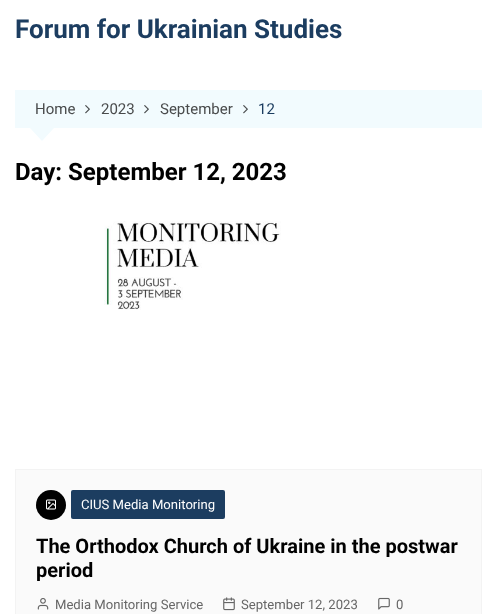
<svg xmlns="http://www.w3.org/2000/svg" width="497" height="614">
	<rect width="100%" height="100%" fill="#FFFFFF" />
	<text x="15" y="38" font-family="Roboto" font-size="26" font-weight="700" fill="#1C3D60">Forum for Ukrainian Studies</text>
	<rect x="15" y="90" width="467" height="38" fill="#F2FBFE" />
	<text x="35" y="114" font-family="Roboto" font-size="15" fill="#494B4C">Home</text>
	<image x="85" y="105" width="5" height="9" href="assets/img1.png" />
	<text x="101" y="114" font-family="Roboto" font-size="15" fill="#494B4C">2023</text>
	<image x="144" y="105" width="5" height="9" href="assets/img1.png" />
	<text x="160" y="114" font-family="Roboto" font-size="15" fill="#494B4C">September</text>
	<image x="243" y="105" width="5" height="9" href="assets/img1.png" />
	<text x="258" y="114" font-family="Roboto" font-size="15" fill="#1C3D60">12</text>
	<path d="M30 128H54L42 141Z" fill="#F2FBFE" />
	<text x="15" y="180" font-family="Roboto" font-size="24" font-weight="700" fill="#010101">Day: September 12, 2023</text>
	<image x="104" y="221" width="177" height="89" href="assets/img2.png" />
	<rect x="15.5" y="469.5" width="466" height="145" fill="#FAFAFA" stroke="#F3F3F3" />
	<circle cx="51" cy="505" r="15" fill="#010101" />
	<image x="46" y="499" width="10" height="11" href="assets/img3.png" />
	<rect x="71" y="490" width="154" height="29" rx="2" fill="#1C3D60" />
	<text x="81" y="509" font-family="Roboto" font-size="13.1" fill="#FFFFFF">CIUS Media Monitoring</text>
	<g font-family="Roboto" font-size="20" font-weight="700" fill="#010101">
		<text x="36" y="553">The Orthodox Church of Ukraine in the postwar</text>
		<text x="36" y="577">period</text>
	</g>
	<image x="37" y="598" width="12" height="12" href="assets/img4.png" />
	<text x="55" y="609" font-family="Roboto" font-size="13.1" fill="#666666">Media Monitoring Service</text>
	<image x="223" y="597" width="12" height="14" href="assets/img5.png" />
	<text x="241" y="609" font-family="Roboto" font-size="13.1" fill="#666666">September 12, 2023</text>
	<image x="378" y="597" width="12" height="13" href="assets/img6.png" />
	<text x="396" y="609" font-family="Roboto" font-size="13.1" fill="#666666">0</text>
</svg>
